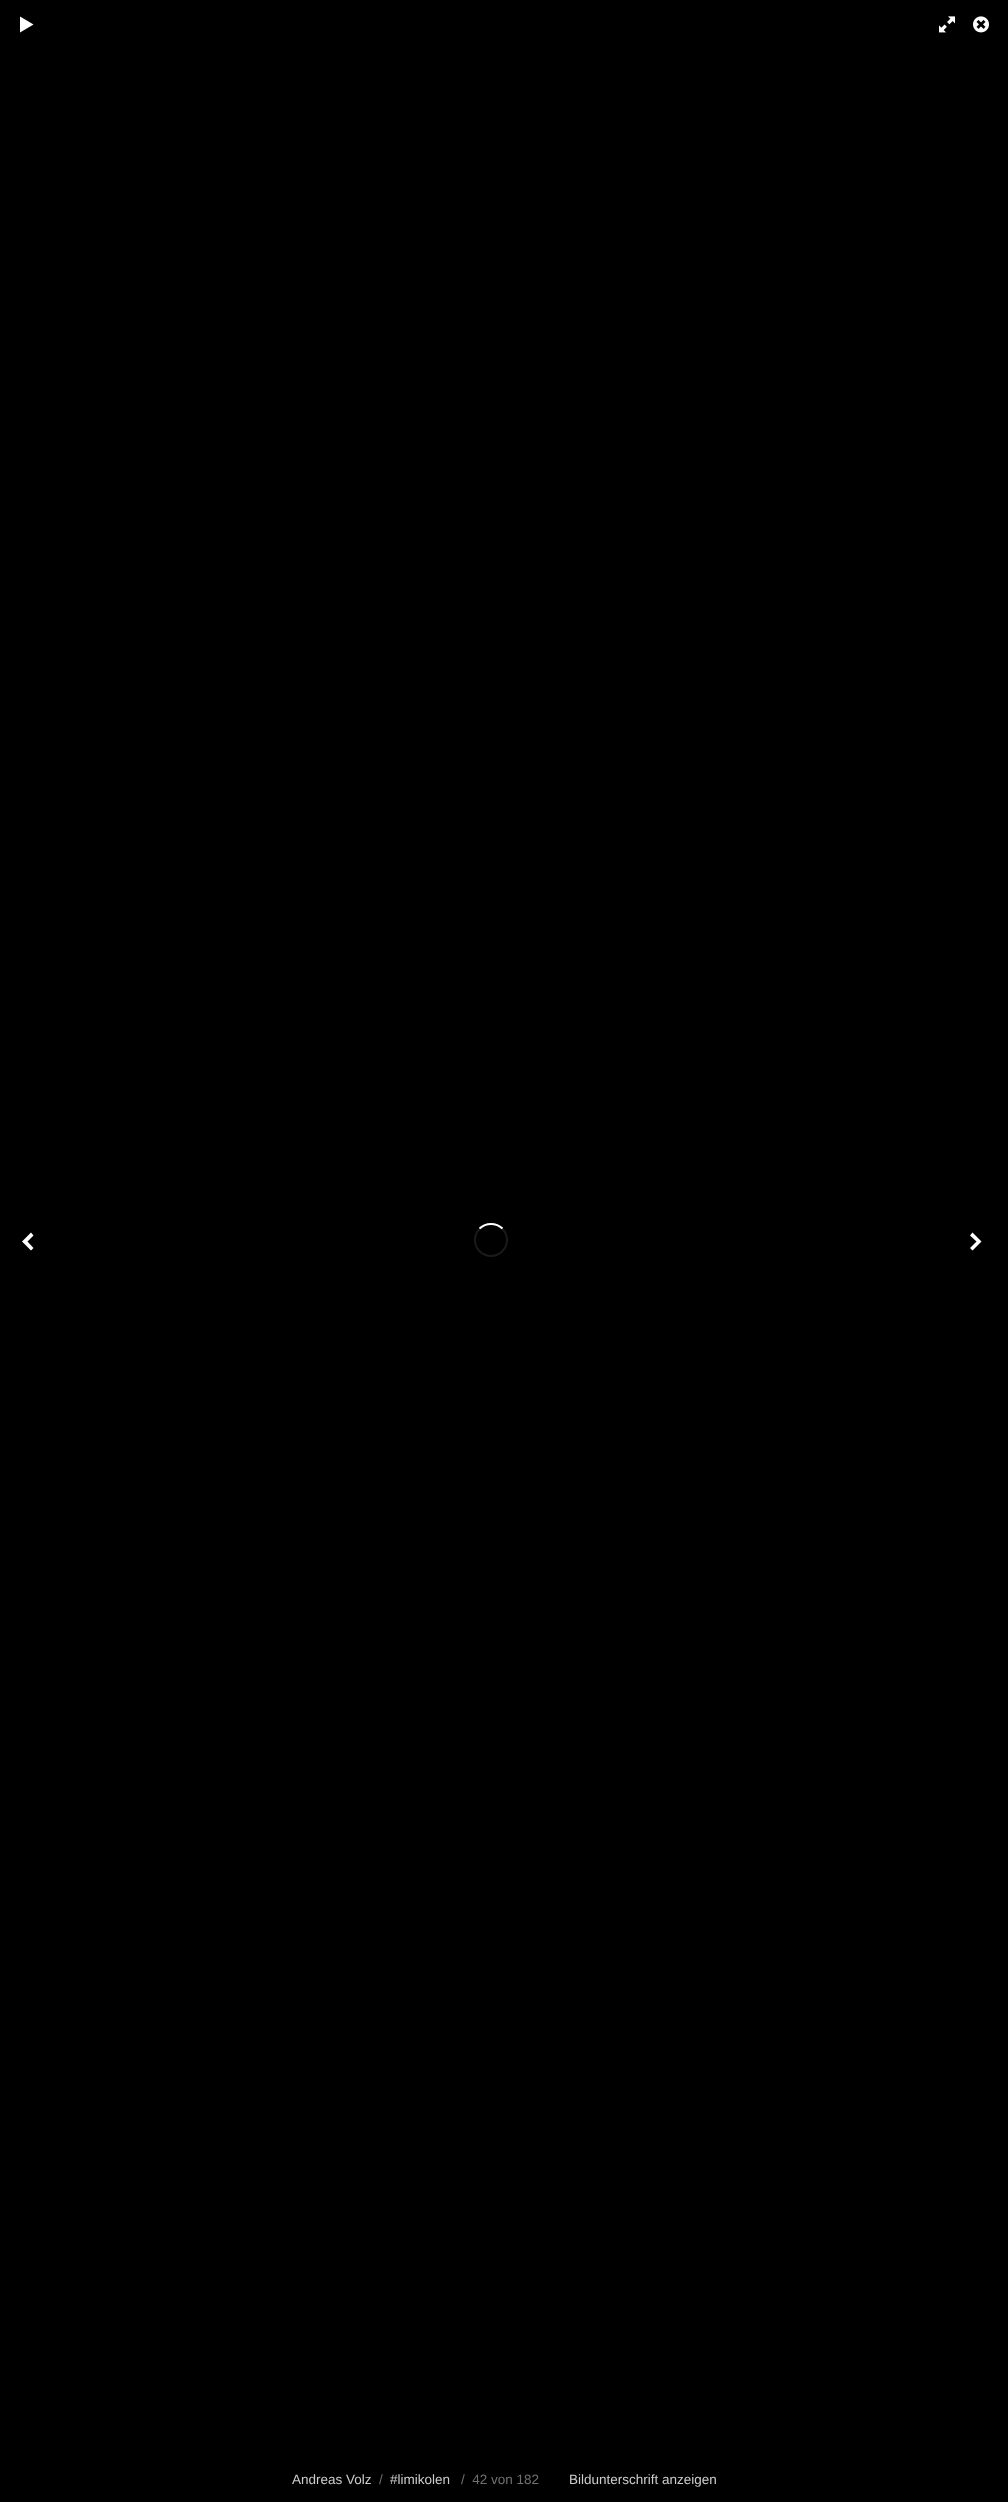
<svg xmlns="http://www.w3.org/2000/svg" width="1008" height="2502">
	<rect width="100%" height="100%" fill="#000000" />
	<path d="M20 32.5V16.5L33.5 24.5Z" fill="#FFFFFF" />
	<image x="939" y="16" width="16" height="17" href="assets/img1.png" />
	<image x="973" y="16" width="16" height="17" href="assets/img2.png" />
	<path d="M22 1241.5L31 1232.5L33.5 1235.5L27.5 1241.5L33.5 1248L31 1250.5Z" fill="#FFFFFF" />
	<circle cx="491" cy="1240" r="16" fill="none" stroke="#1A1A1A" stroke-width="2" />
	<path d="M479.5 1228.5C486 1222.5 496 1222.5 502.5 1228.5" fill="none" stroke="#FFFFFF" stroke-width="2" />
	<path d="M970 1248L976.5 1241.5L970 1235.5L972.5 1232.5L981.5 1241.5L972.5 1250.5Z" fill="#FFFFFF" />
	<text x="292" y="2484" font-family="Liberation Sans" font-size="13.5" fill="#CCCCCC">Andreas Volz</text>
	<text x="379" y="2484" font-family="Liberation Sans" font-size="13.5" fill="#707070">/</text>
	<text x="390" y="2484" font-family="Liberation Sans" font-size="13.5" fill="#CCCCCC">#limikolen</text>
	<text x="461" y="2484" font-family="Liberation Sans" font-size="13.5" fill="#707070" xml:space="preserve">/  42 von 182</text>
	<text x="569" y="2484" font-family="Liberation Sans" font-size="13.5" fill="#CCCCCC">Bildunterschrift anzeigen</text>
</svg>
